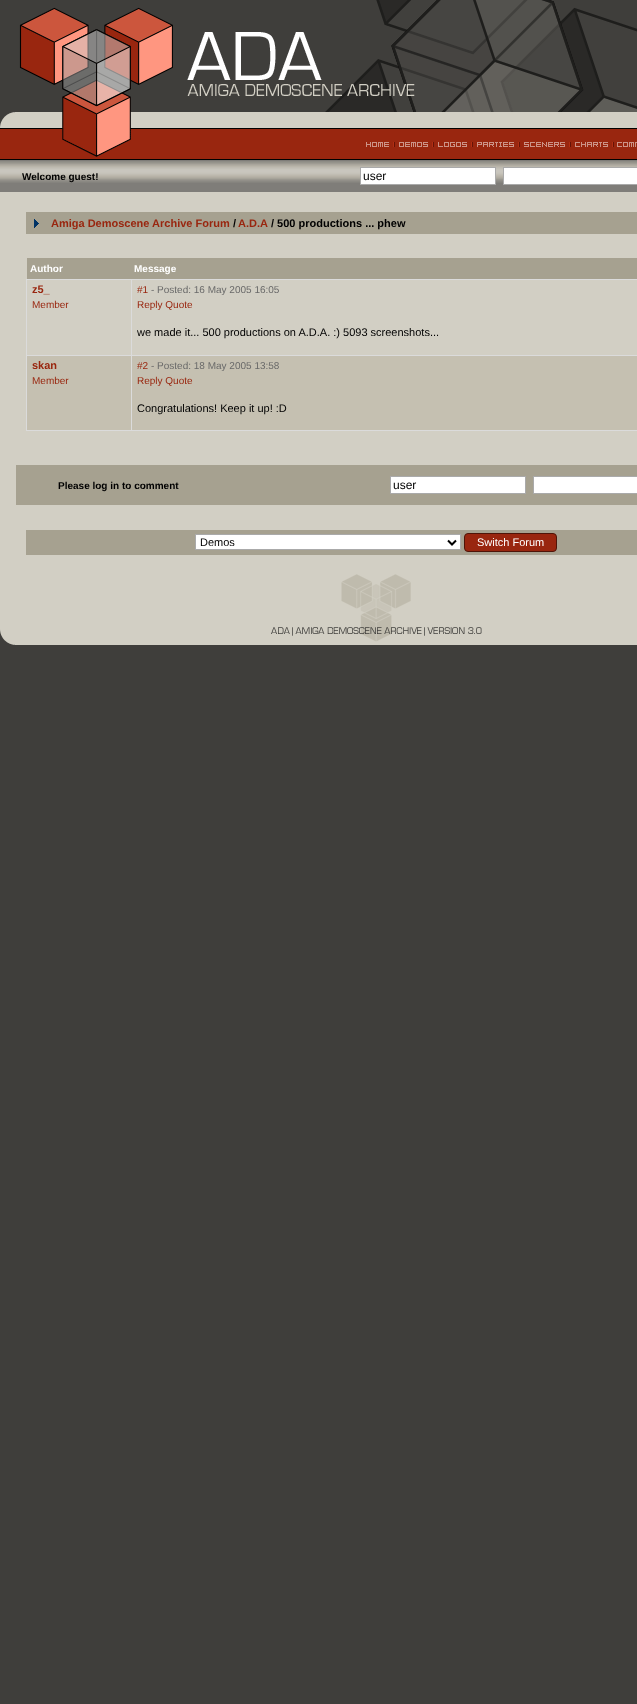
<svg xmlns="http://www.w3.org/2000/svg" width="637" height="1704">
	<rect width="100%" height="100%" fill="#3F3E3B" />
	<image x="0" y="0" width="637" height="128" href="assets/img1.png" />
	<rect x="0" y="192" width="637" height="373" fill="#D2CFC4" />
	<image x="0" y="128" width="637" height="32" href="assets/img2.png" />
	<image x="366" y="142" width="28" height="5" href="assets/img3.png" />
	<image x="394" y="142" width="39" height="5" href="assets/img4.png" />
	<image x="433" y="142" width="39" height="5" href="assets/img5.png" />
	<image x="472" y="142" width="47" height="5" href="assets/img6.png" />
	<image x="519" y="142" width="51" height="5" href="assets/img7.png" />
	<image x="570" y="142" width="43" height="5" href="assets/img8.png" />
	<image x="613" y="142" width="24" height="5" href="assets/img9.png" />
	<rect x="0" y="160" width="637" height="32" fill="#7F7D79" />
	<image x="0" y="161" width="637" height="22" href="assets/img10.png" />
	<text x="22" y="180" font-family="Liberation Sans" font-size="10" font-weight="700" fill="#000000">Welcome guest!</text>
	<rect x="360.5" y="167.5" width="135" height="17" fill="#FFFFFF" stroke="#AAAAAA" />
	<text x="363" y="180" font-family="Liberation Sans" font-size="12" fill="#000000">user</text>
	<rect x="503.5" y="167.5" width="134" height="17" fill="#FFFFFF" stroke="#AAAAAA" />
	<rect x="26" y="212" width="611" height="22" fill="#A6A190" />
	<image x="34" y="219" width="5" height="9" href="assets/img11.png" />
	<text x="51" y="227" font-family="Liberation Sans" font-size="11" font-weight="700" fill="#99260F">Amiga Demoscene Archive Forum</text>
	<text x="233" y="227" font-family="Liberation Sans" font-size="11" font-weight="700" fill="#000000">/</text>
	<text x="238" y="227" font-family="Liberation Sans" font-size="11" font-weight="700" fill="#99260F">A.D.A</text>
	<text x="271" y="227" font-family="Liberation Sans" font-size="11" font-weight="700" fill="#000000">/ 500 productions ... phew</text>
	<rect x="27" y="258" width="610" height="21" fill="#A6A190" />
	<g font-family="Liberation Sans" font-size="10" font-weight="700" fill="#FFFFFF">
		<text x="30" y="272">Author</text>
		<text x="134" y="272">Message</text>
	</g>
	<rect x="131" y="279" width="506" height="1" fill="#DBDBDB" />
	<rect x="131" y="355" width="506" height="1" fill="#DBDBDB" />
	<rect x="27" y="356" width="610" height="74" fill="#C5C0B1" />
	<rect x="131" y="430" width="506" height="1" fill="#DBDBDB" />
	<rect x="131" y="355" width="1" height="76" fill="#DBDBDB" />
	<rect x="26" y="355" width="106" height="1" fill="#DBDBDB" />
	<rect x="131" y="279" width="1" height="77" fill="#DBDBDB" />
	<rect x="26" y="279" width="106" height="1" fill="#DBDBDB" />
	<rect x="26" y="430" width="106" height="1" fill="#DBDBDB" />
	<rect x="26" y="355" width="1" height="76" fill="#DBDBDB" />
	<rect x="26" y="279" width="1" height="77" fill="#DBDBDB" />
	<text x="32" y="293" font-family="Liberation Sans" font-size="11" font-weight="700" fill="#99260F">z5_</text>
	<g font-family="Liberation Sans" font-size="10" fill="#99260F">
		<text x="32" y="308">Member</text>
		<text x="137" y="293">#1</text>
	</g>
	<text x="151" y="293" font-family="Liberation Sans" font-size="10" fill="#696969">- Posted: 16 May 2005 16:05</text>
	<text x="137" y="308" font-family="Liberation Sans" font-size="10" fill="#99260F">Reply Quote</text>
	<text x="137" y="336" font-family="Liberation Sans" font-size="11" fill="#000000">we made it... 500 productions on A.D.A. :) 5093 screenshots...</text>
	<text x="32" y="369" font-family="Liberation Sans" font-size="11" font-weight="700" fill="#99260F">skan</text>
	<g font-family="Liberation Sans" font-size="10" fill="#99260F">
		<text x="32" y="384">Member</text>
		<text x="137" y="369">#2</text>
	</g>
	<text x="151" y="369" font-family="Liberation Sans" font-size="10" fill="#696969">- Posted: 18 May 2005 13:58</text>
	<text x="137" y="384" font-family="Liberation Sans" font-size="10" fill="#99260F">Reply Quote</text>
	<text x="137" y="412" font-family="Liberation Sans" font-size="11" fill="#000000">Congratulations! Keep it up! :D</text>
	<rect x="16" y="465" width="621" height="40" fill="#A6A190" />
	<text x="58" y="489" font-family="Liberation Sans" font-size="10" font-weight="700" fill="#000000">Please log in to comment</text>
	<rect x="390.5" y="476.5" width="135" height="17" fill="#FFFFFF" stroke="#AAAAAA" />
	<text x="393" y="489" font-family="Liberation Sans" font-size="12" fill="#000000">user</text>
	<rect x="533.5" y="476.5" width="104" height="17" fill="#FFFFFF" stroke="#AAAAAA" />
	<rect x="26" y="530" width="611" height="25" fill="#A6A190" />
	<rect x="195.5" y="534.5" width="265" height="15" fill="#FFFFFF" stroke="#AAAAAA" />
	<path d="M448 540.5L452 544.5L456 540.5" fill="none" stroke="#000000" stroke-width="2" />
	<text x="200" y="546" font-family="Liberation Sans" font-size="11" fill="#000000">Demos</text>
	<rect x="464.5" y="533.5" width="92" height="18" rx="3.5" fill="#99260F" stroke="#4F1408" />
	<text x="477" y="546" font-family="Liberation Sans" font-size="11" fill="#FFFFFF">Switch Forum</text>
	<image x="0" y="565" width="637" height="80" href="assets/img12.png" />
</svg>
